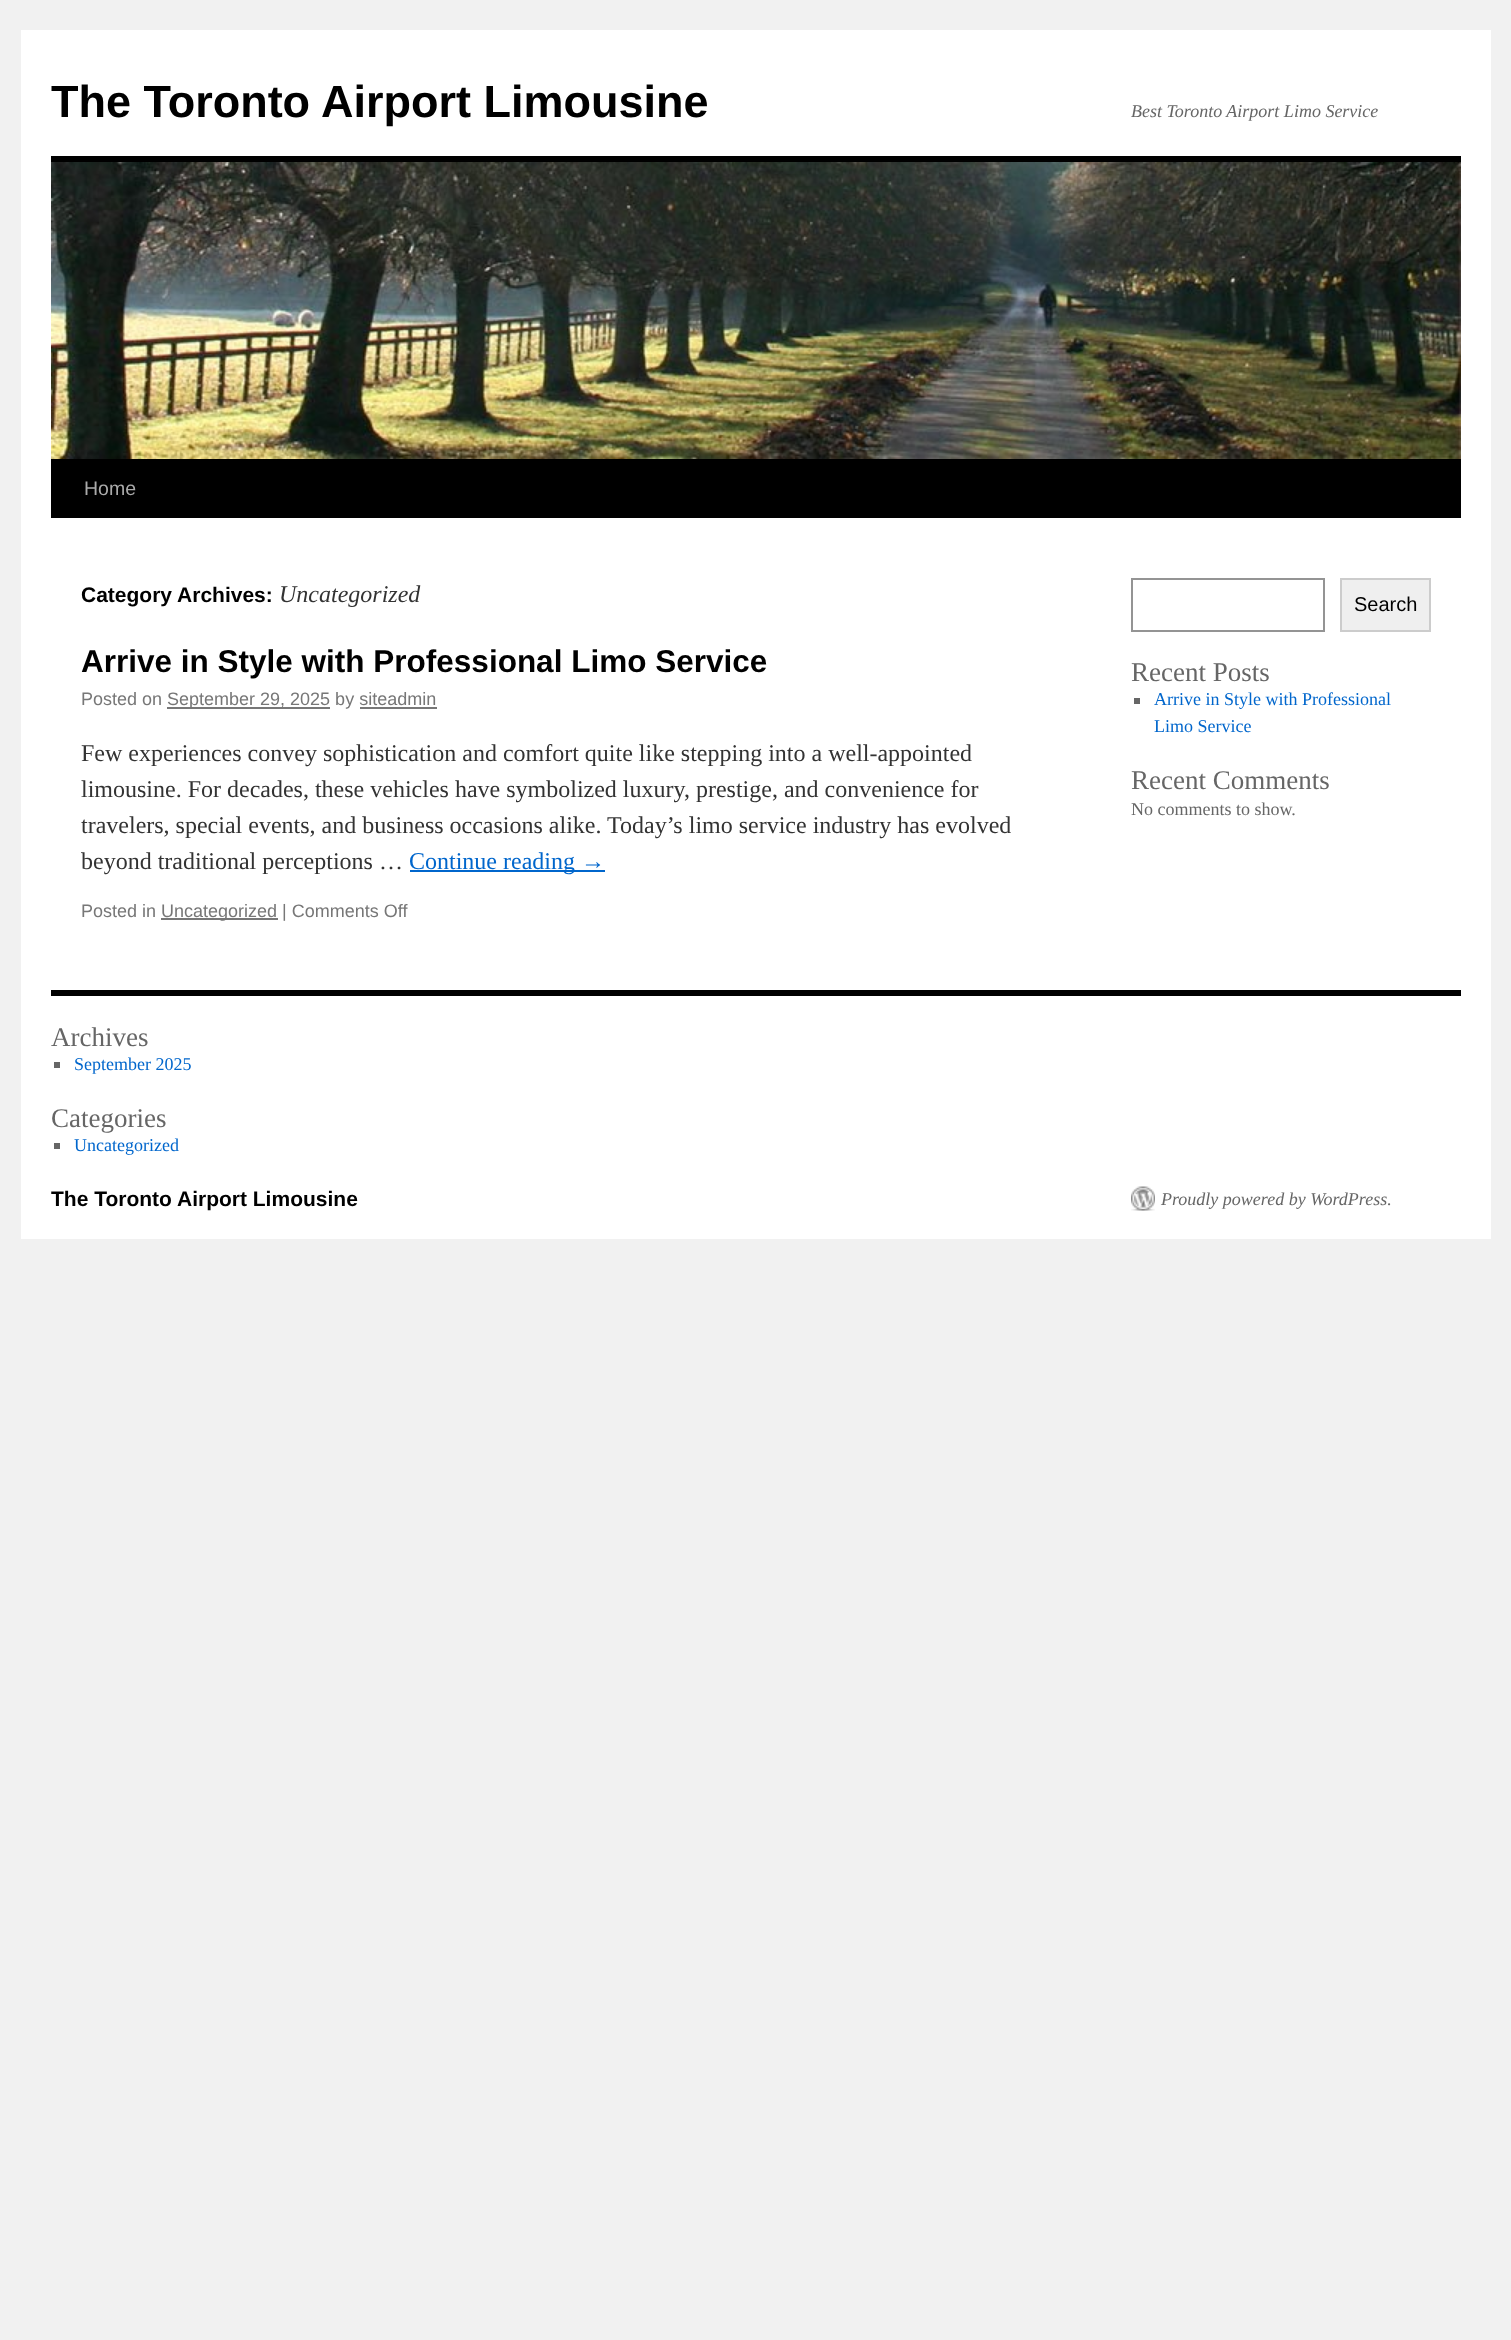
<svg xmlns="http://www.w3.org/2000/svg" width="1511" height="2340">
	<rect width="100%" height="100%" fill="#F1F1F1" />
	<rect x="21" y="30" width="1470" height="1209" fill="#FFFFFF" />
	<text x="51" y="117" font-family="Liberation Sans" font-size="45" font-weight="700" fill="#000000">The Toronto Airport Limousine</text>
	<text x="1131" y="117" font-family="Liberation Serif" font-size="18" font-style="italic" fill="#666666">Best Toronto Airport Limo Service</text>
	<rect x="51" y="156" width="1410" height="6" fill="#000000" />
	<rect x="51" y="459" width="1410" height="59" fill="#000000" />
	<image x="51" y="162" width="1410" height="297" href="assets/img1.png" />
	<text x="84" y="495" font-family="Liberation Sans" font-size="19.5" fill="#AAAAAA">Home</text>
	<text x="81" y="602" font-family="Liberation Sans" font-size="21" font-weight="700" fill="#000000">Category Archives:</text>
	<text x="279" y="602" font-family="Liberation Serif" font-size="24" font-style="italic" fill="#333333">Uncategorized</text>
	<text x="81" y="672" font-family="Liberation Sans" font-size="31.5" font-weight="700" fill="#000000">Arrive in Style with Professional Limo Service</text>
	<text x="81" y="705" font-family="Liberation Sans" font-size="18" fill="#777777">Posted on</text>
	<rect x="167" y="707" width="163" height="2" fill="#777777" />
	<text x="167" y="705" font-family="Liberation Sans" font-size="18" fill="#777777">September 29, 2025 by siteadmin</text>
	<rect x="360" y="707" width="77" height="2" fill="#777777" />
	<g font-family="Liberation Serif" font-size="24" fill="#333333">
		<text x="81" y="761">Few experiences convey sophistication and comfort quite like stepping into a well-appointed</text>
		<text x="81" y="797">limousine. For decades, these vehicles have symbolized luxury, prestige, and convenience for</text>
		<text x="81" y="833">travelers, special events, and business occasions alike. Today’s limo service industry has evolved</text>
		<text x="81" y="869">beyond traditional perceptions …</text>
	</g>
	<rect x="410" y="870" width="195" height="2" fill="#0066CC" />
	<text x="409" y="869" font-family="Liberation Serif" font-size="24" fill="#0066CC">Continue reading →</text>
	<text x="81" y="917" font-family="Liberation Sans" font-size="18" fill="#777777">Posted in</text>
	<rect x="161" y="918" width="117" height="2" fill="#777777" />
	<text x="161" y="917" font-family="Liberation Sans" font-size="18" fill="#777777">Uncategorized | Comments Off</text>
	<rect x="1132" y="579" width="192" height="52" fill="none" stroke="#949494" stroke-width="2" />
	<rect x="1341" y="579" width="89" height="52" fill="#EFEFEF" stroke="#CCCCCC" stroke-width="2" />
	<text x="1354" y="611" font-family="Liberation Sans" font-size="20" fill="#000000">Search</text>
	<text x="1131" y="681" font-family="Liberation Serif" font-size="27" fill="#666666">Recent Posts</text>
	<rect x="1134" y="698" width="6" height="6" fill="#666666" />
	<g font-family="Liberation Serif" font-size="18" fill="#0066CC">
		<text x="1154" y="705">Arrive in Style with Professional</text>
		<text x="1154" y="732">Limo Service</text>
	</g>
	<text x="1131" y="789" font-family="Liberation Serif" font-size="27" fill="#666666">Recent Comments</text>
	<text x="1131" y="815" font-family="Liberation Serif" font-size="18" fill="#666666">No comments to show.</text>
	<rect x="51" y="990" width="1410" height="6" fill="#000000" />
	<text x="51" y="1046" font-family="Liberation Serif" font-size="27" fill="#666666">Archives</text>
	<rect x="54" y="1062" width="6" height="6" fill="#666666" />
	<text x="74" y="1070" font-family="Liberation Serif" font-size="18" fill="#0066CC">September 2025</text>
	<text x="51" y="1127" font-family="Liberation Serif" font-size="27" fill="#666666">Categories</text>
	<rect x="54" y="1143" width="6" height="6" fill="#666666" />
	<text x="74" y="1151" font-family="Liberation Serif" font-size="18" fill="#0066CC">Uncategorized</text>
	<text x="51" y="1206" font-family="Liberation Sans" font-size="21" font-weight="700" fill="#000000">The Toronto Airport Limousine</text>
	<image x="1131" y="1186" width="24" height="25" href="assets/img2.png" />
	<text x="1161" y="1205" font-family="Liberation Serif" font-size="18" font-style="italic" fill="#666666">Proudly powered by WordPress.</text>
</svg>
